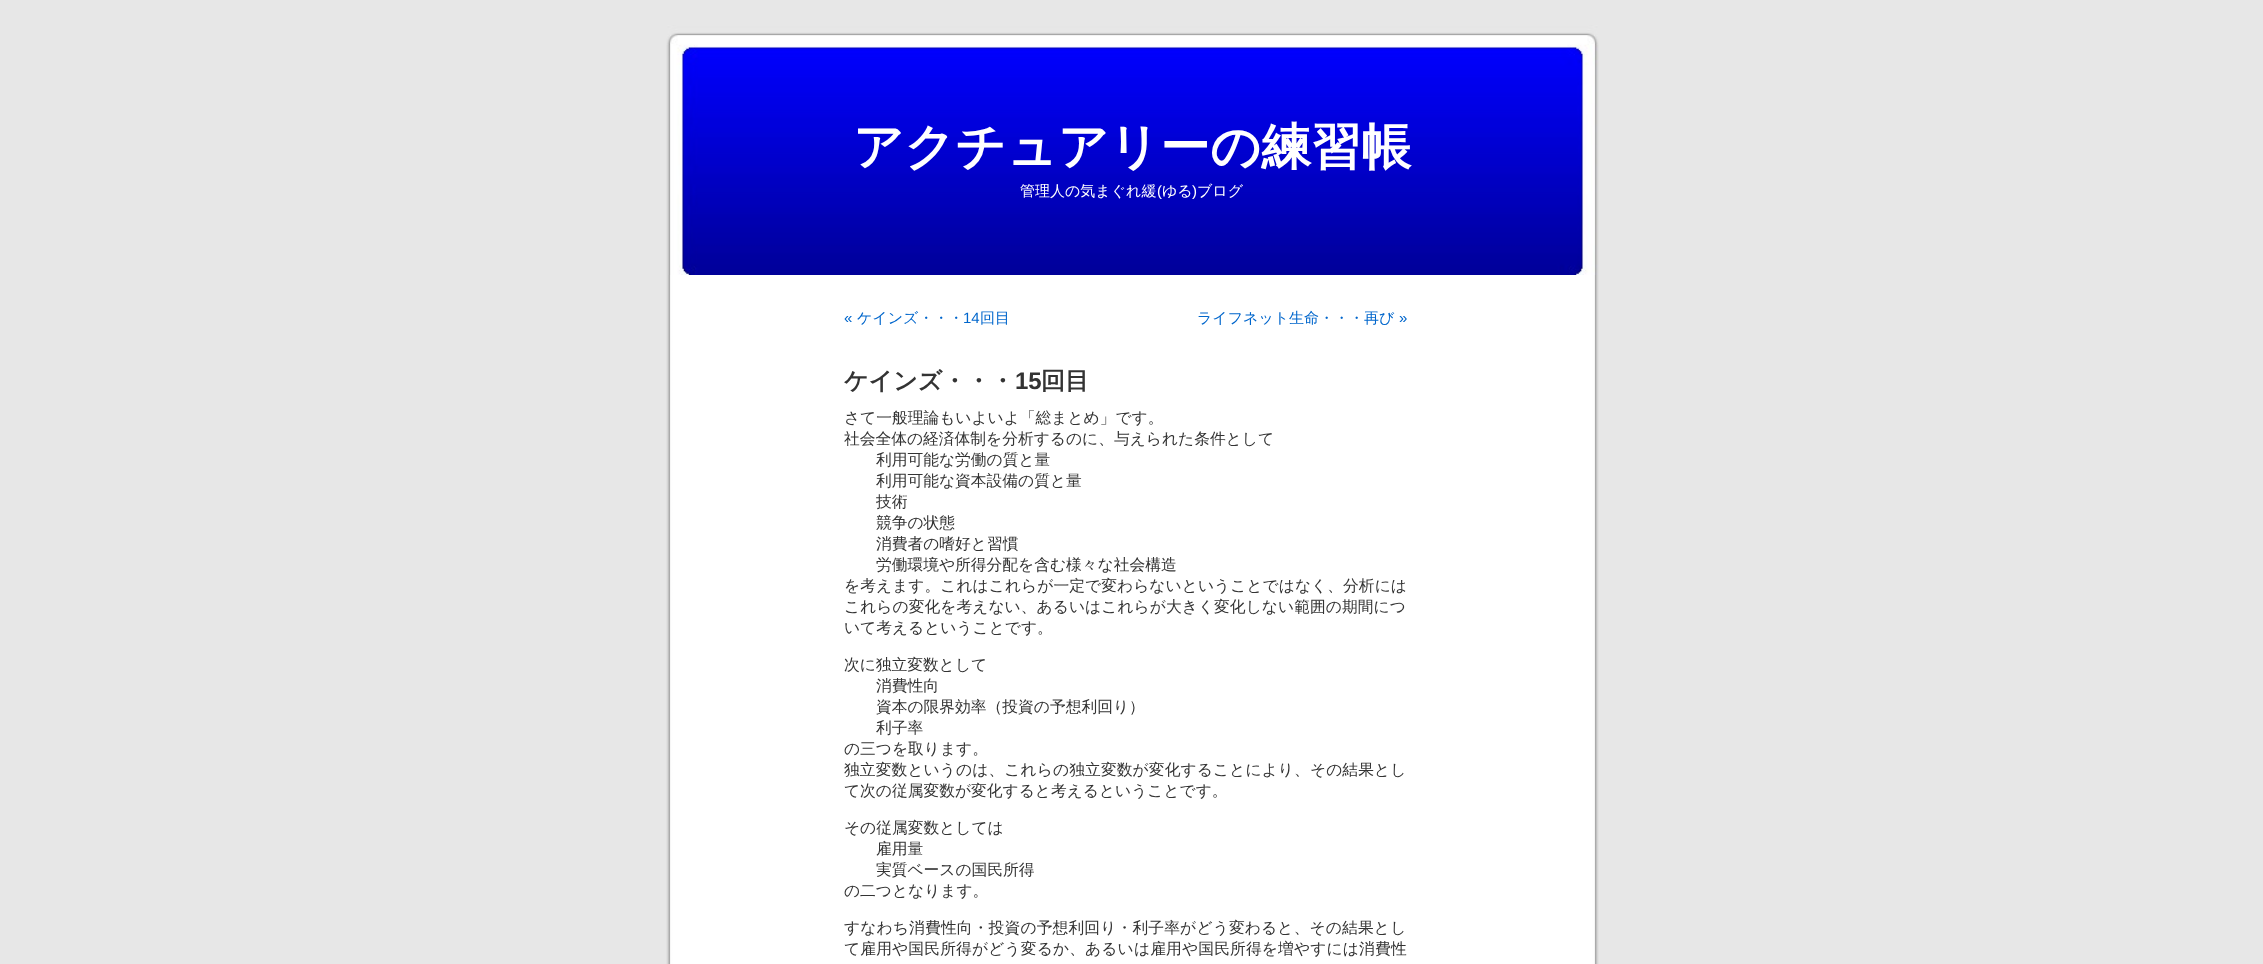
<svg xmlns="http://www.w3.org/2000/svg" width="2263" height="964">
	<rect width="100%" height="100%" fill="#E7E7E7" />
	<image x="666" y="275" width="933" height="689" href="assets/img1.png" />
	<image x="666" y="25" width="933" height="250" href="assets/img2.png" />
	<text x="853" y="164" font-family="WenQuanYi Zen Hei" font-size="50" font-weight="700" fill="#FFFFFF">アクチュアリーの練習帳</text>
	<text x="1020" y="196" font-family="WenQuanYi Zen Hei" font-size="15" font-weight="500" fill="#FFFFFF">管理人の気まぐれ緩</text>
	<text x="1157" y="196" font-family="Liberation Sans" font-size="15" fill="#FFFFFF">(</text>
	<text x="1162" y="196" font-family="WenQuanYi Zen Hei" font-size="15" font-weight="500" fill="#FFFFFF">ゆる</text>
	<text x="1192" y="196" font-family="Liberation Sans" font-size="15" fill="#FFFFFF">)</text>
	<text x="1197" y="196" font-family="WenQuanYi Zen Hei" font-size="15" font-weight="500" fill="#FFFFFF">ブログ</text>
	<text x="844" y="323" font-family="Liberation Sans" font-size="15" fill="#0066CC">«</text>
	<text x="857" y="323" font-family="WenQuanYi Zen Hei" font-size="15" font-weight="500" fill="#0066CC">ケインズ・・・</text>
	<text x="963" y="323" font-family="Liberation Sans" font-size="15" fill="#0066CC">14</text>
	<g font-family="WenQuanYi Zen Hei" font-size="15" font-weight="500" fill="#0066CC">
		<text x="980" y="323">回目</text>
		<text x="1197" y="323">ライフネット生命・・・再び</text>
	</g>
	<text x="1399" y="323" font-family="Liberation Sans" font-size="15" fill="#0066CC">»</text>
	<text x="844" y="389" font-family="WenQuanYi Zen Hei" font-size="24" font-weight="700" fill="#333333">ケインズ・・・</text>
	<text x="1015" y="389" font-family="Liberation Sans" font-size="24" font-weight="700" fill="#333333">15</text>
	<text x="1041" y="389" font-family="WenQuanYi Zen Hei" font-size="24" font-weight="700" fill="#333333">回目</text>
	<g font-family="WenQuanYi Zen Hei" font-size="15.75" font-weight="500" fill="#333333">
		<text x="844" y="423">さて一般理論もいよいよ「総まとめ」です。</text>
		<text x="844" y="444">社会全体の経済体制を分析するのに、与えられた条件として</text>
		<text x="876" y="465">利用可能な労働の質と量</text>
		<text x="876" y="486">利用可能な資本設備の質と量</text>
		<text x="876" y="507">技術</text>
		<text x="876" y="528">競争の状態</text>
		<text x="876" y="549">消費者の嗜好と習慣</text>
		<text x="876" y="570">労働環境や所得分配を含む様々な社会構造</text>
	</g>
	<g font-family="WenQuanYi Zen Hei" font-size="15.75" font-weight="500" letter-spacing="0.05" fill="#333333">
		<text x="844" y="591">を考えます。これはこれらが一定で変わらないということではなく、分析には</text>
		<text x="844" y="612">これらの変化を考えない、あるいはこれらが大きく変化しない範囲の期間につ</text>
	</g>
	<g font-family="WenQuanYi Zen Hei" font-size="15.75" font-weight="500" fill="#333333">
		<text x="844" y="633">いて考えるということです。</text>
		<text x="844" y="670">次に独立変数として</text>
		<text x="876" y="691">消費性向</text>
		<text x="876" y="712">資本の限界効率（投資の予想利回り）</text>
		<text x="876" y="733">利子率</text>
		<text x="844" y="754">の三つを取ります。</text>
	</g>
	<text x="844" y="775" font-family="WenQuanYi Zen Hei" font-size="15.75" font-weight="500" letter-spacing="0.1" fill="#333333">独立変数というのは、これらの独立変数が変化することにより、その結果とし</text>
	<g font-family="WenQuanYi Zen Hei" font-size="15.75" font-weight="500" fill="#333333">
		<text x="844" y="796">て次の従属変数が変化すると考えるということです。</text>
		<text x="844" y="833">その従属変数としては</text>
		<text x="876" y="854">雇用量</text>
		<text x="876" y="875">実質ベースの国民所得</text>
		<text x="844" y="896">の二つとなります。</text>
	</g>
	<g font-family="WenQuanYi Zen Hei" font-size="15.75" font-weight="500" letter-spacing="0.15" fill="#333333">
		<text x="844" y="933">すなわち消費性向・投資の予想利回り・利子率がどう変わると、その結果とし</text>
		<text x="844" y="954">て雇用や国民所得がどう変るか、あるいは雇用や国民所得を増やすには消費性</text>
	</g>
</svg>
